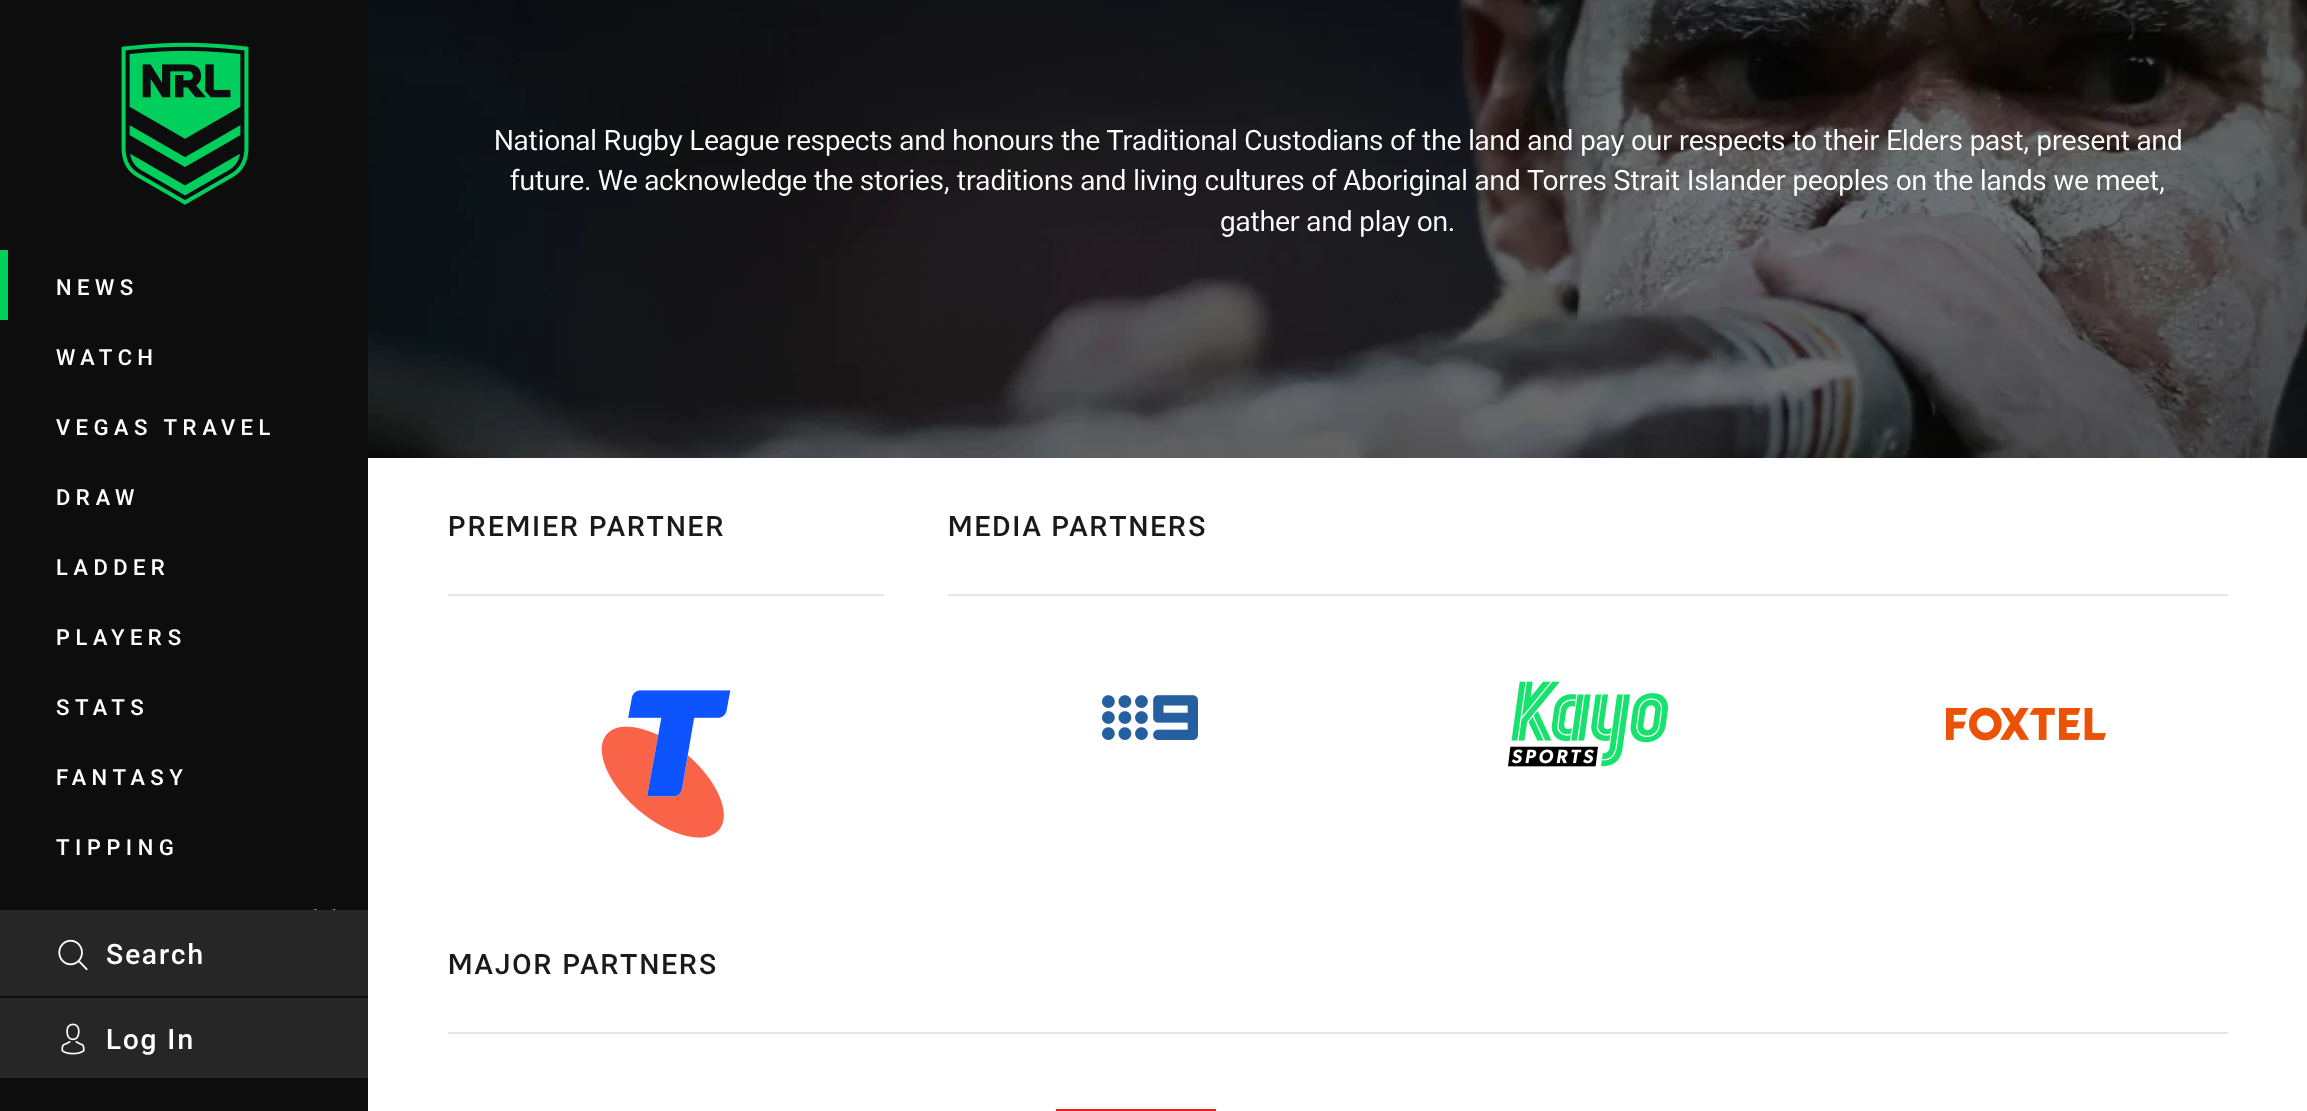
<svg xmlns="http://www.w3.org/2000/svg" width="2307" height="1111">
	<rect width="100%" height="100%" fill="#FFFFFF" />
	<rect x="0" y="0" width="368" height="1111" fill="#0D0D0D" />
	<image x="121" y="42" width="128" height="163" href="assets/img1.png" />
	<rect x="0" y="250" width="8" height="70" fill="#00CF5D" />
	<g font-family="'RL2'" font-size="22" font-weight="500" letter-spacing="5.5" fill="#FFFFFF">
		<text x="56" y="295">NEWS</text>
		<text x="56" y="365">WATCH</text>
		<text x="56" y="435">VEGAS TRAVEL</text>
		<text x="56" y="505">DRAW</text>
		<text x="56" y="575">LADDER</text>
		<text x="56" y="645">PLAYERS</text>
		<text x="56" y="715">STATS</text>
		<text x="56" y="785">FANTASY</text>
		<text x="56" y="855">TIPPING</text>
	</g>
	<image x="314" y="909" width="22" height="1" href="assets/img2.png" />
	<rect x="0" y="910" width="368" height="86" fill="#262626" />
	<image x="58" y="939" width="30" height="32" href="assets/img3.png" />
	<text x="106" y="964" font-family="'RL2'" font-size="28" font-weight="500" letter-spacing="2" fill="#FFFFFF">Search</text>
	<rect x="0" y="998" width="368" height="80" fill="#262626" />
	<image x="61" y="1023" width="24" height="32" href="assets/img4.png" />
	<text x="106" y="1049" font-family="'RL2'" font-size="28" font-weight="500" letter-spacing="2" fill="#FFFFFF">Log In</text>
	<image x="368" y="0" width="1939" height="458" href="assets/img5.png" />
	<g font-family="'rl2'" font-size="28" fill="#FFFFFF">
		<text x="494" y="150">National Rugby League respects and honours the Traditional Custodians of the land and pay our respects to their Elders past, present and</text>
		<text x="510" y="190">future. We acknowledge the stories, traditions and living cultures of Aboriginal and Torres Strait Islander peoples on the lands we meet,</text>
		<text x="1220" y="231">gather and play on.</text>
	</g>
	<rect x="448" y="594" width="436" height="2" fill="#E6E6E6" />
	<text x="448" y="536" font-family="'RL2'" font-size="28" font-weight="500" letter-spacing="2" fill="#1A1A1A">PREMIER PARTNER</text>
	<image x="601" y="690" width="130" height="148" href="assets/img6.png" />
	<rect x="948" y="594" width="1280" height="2" fill="#E6E6E6" />
	<text x="948" y="536" font-family="'RL2'" font-size="28" font-weight="500" letter-spacing="2" fill="#1A1A1A">MEDIA PARTNERS</text>
	<image x="1102" y="695" width="96" height="45" href="assets/img7.png" />
	<image x="1508" y="681" width="160" height="86" href="assets/img8.png" />
	<image x="1946" y="707" width="160" height="34" href="assets/img9.png" />
	<rect x="448" y="1032" width="1780" height="2" fill="#E6E6E6" />
	<text x="448" y="974" font-family="'RL2'" font-size="28" font-weight="500" letter-spacing="2" fill="#1A1A1A">MAJOR PARTNERS</text>
	<rect x="1056" y="1109" width="160" height="2" fill="#ED1C24" />
</svg>
